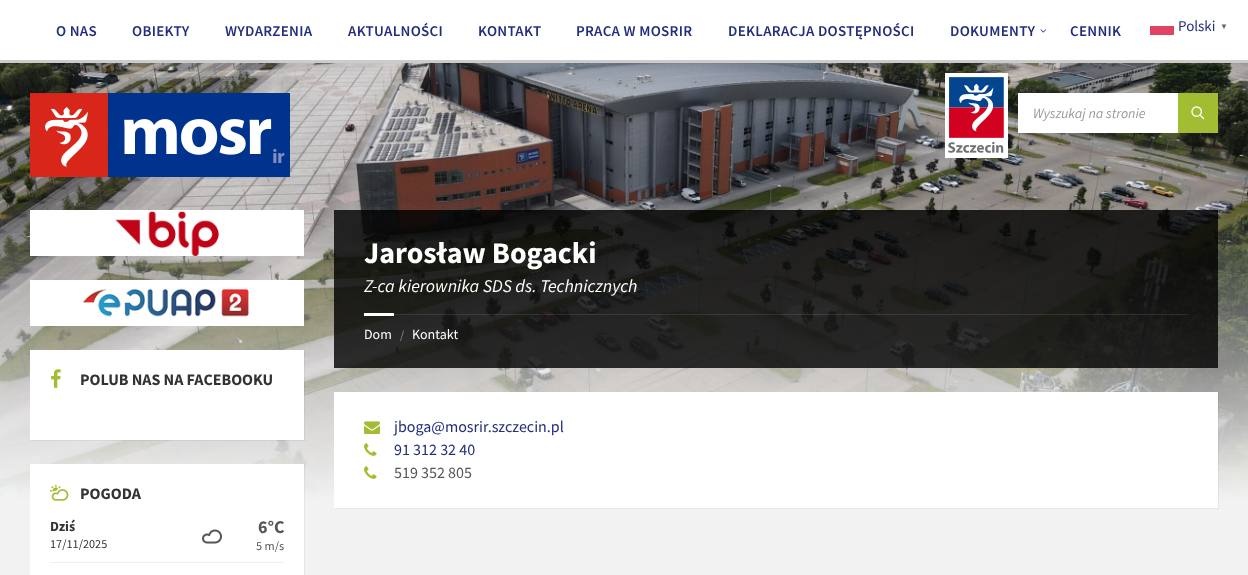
<svg xmlns="http://www.w3.org/2000/svg" width="1248" height="575">
	<rect width="100%" height="100%" fill="#F2F2F2" />
	<rect x="0" y="0" width="1248" height="60" fill="#FFFFFF" />
	<rect x="0" y="60" width="1248" height="3" fill="#CCCCCC" />
	<g font-family="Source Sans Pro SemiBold" font-size="15" font-weight="600" letter-spacing="0.3" fill="#232D7D">
		<text x="56" y="36">O NAS</text>
		<text x="132" y="36">OBIEKTY</text>
		<text x="225" y="36">WYDARZENIA</text>
		<text x="348" y="36">AKTUALNOŚCI</text>
		<text x="478" y="36">KONTAKT</text>
		<text x="576" y="36">PRACA W MOSRIR</text>
		<text x="728" y="36">DEKLARACJA DOSTĘPNOŚCI</text>
		<text x="950" y="36">DOKUMENTY</text>
	</g>
	<image x="1040" y="29" width="6" height="4" href="assets/img1.png" />
	<text x="1070" y="36" font-family="Source Sans Pro SemiBold" font-size="15" font-weight="600" letter-spacing="0.3" fill="#232D7D">CENNIK</text>
	<image x="0" y="63" width="1248" height="437" href="assets/img5.png" />
	<image x="945" y="73" width="63" height="85" href="assets/img2.png" />
	<image x="30" y="93" width="260" height="84" href="assets/img3.png" />
	<rect x="1018" y="93" width="160" height="40" fill="#FFFFFF" />
	<text x="1033" y="118" font-family="Source Sans Pro" font-size="14" font-style="italic" fill="#9A9A9A">Wyszukaj na stronie</text>
	<rect x="1178" y="93" width="40" height="40" fill="#A2BD31" />
	<image x="1191" y="106" width="14" height="14" href="assets/img4.png" />
	<image x="30" y="210" width="274" height="46" href="assets/img6.png" />
	<image x="30" y="280" width="274" height="46" href="assets/img7.png" />
	<path d="M31 440V441H305V351H304V440Z" fill="#000000" fill-opacity="0.05" />
	<rect x="30" y="350" width="274" height="90" fill="#FFFFFF" />
	<image x="51" y="369" width="10" height="19" href="assets/img8.png" />
	<text x="80" y="385" font-family="Source Sans Pro" font-size="16" font-weight="700" fill="#333333">POLUB NAS NA FACEBOOKU</text>
	<path d="M31 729V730H305V465H304V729Z" fill="#000000" fill-opacity="0.05" />
	<rect x="30" y="464" width="274" height="111" fill="#FFFFFF" />
	<image x="50" y="484" width="19" height="17" href="assets/img9.png" />
	<text x="80" y="499" font-family="Source Sans Pro" font-size="16" font-weight="700" fill="#333333">POGODA</text>
	<text x="50" y="531" font-family="Source Sans Pro" font-size="14" font-weight="700" fill="#333333">Dziś</text>
	<text x="50" y="548" font-family="Source Sans Pro" font-size="12.25" fill="#333333">17/11/2025</text>
	<text x="258" y="533" font-family="Source Sans Pro" font-size="18" font-weight="700" fill="#565656">6°C</text>
	<image x="202" y="529" width="20" height="15" href="assets/img10.png" />
	<text x="256" y="550" font-family="Source Sans Pro" font-size="12.25" fill="#565656">5 m/s</text>
	<rect x="50" y="562" width="234" height="1" fill="#F0F0F0" />
	<rect x="334" y="210" width="884" height="158" fill="#000000" fill-opacity="0.8" />
	<text x="364" y="263" font-family="Source Sans Pro" font-size="30" font-weight="700" fill="#FFFFFF">Jarosław Bogacki</text>
	<text x="364" y="292" font-family="Source Sans Pro" font-size="18" font-style="italic" fill="#FFFFFF">Z-ca kierownika SDS ds. Technicznych</text>
	<rect x="394" y="314" width="794" height="1" fill="#FFFFFF" fill-opacity="0.1" />
	<rect x="364" y="313" width="30" height="3" fill="#FFFFFF" />
	<text x="364" y="339" font-family="Source Sans Pro" font-size="14" fill="#FFFFFF">Dom</text>
	<text x="400" y="339" font-family="Source Sans Pro" font-size="12" fill="#8A949B">/</text>
	<text x="412" y="339" font-family="Source Sans Pro" font-size="14" fill="#FFFFFF">Kontakt</text>
	<path d="M335 508V509H1219V393H1218V508Z" fill="#000000" fill-opacity="0.05" />
	<rect x="334" y="392" width="884" height="116" fill="#FFFFFF" />
	<image x="364" y="421" width="16" height="13" href="assets/img11.png" />
	<text x="394" y="432" font-family="Source Sans Pro" font-size="16" fill="#232D7D">jboga@mosrir.szczecin.pl</text>
	<image x="364" y="443" width="13" height="13" href="assets/img12.png" />
	<text x="394" y="455" font-family="Source Sans Pro" font-size="16" fill="#232D7D">91 312 32 40</text>
	<image x="364" y="466" width="13" height="13" href="assets/img12.png" />
	<text x="394" y="478" font-family="Source Sans Pro" font-size="16" fill="#565656">519 352 805</text>
	<text x="1178" y="31" font-family="Source Sans Pro" font-size="15" fill="#232D7D">Polski</text>
	<rect x="1150" y="26" width="24" height="9" fill="#E34363" />
	<text x="1220" y="29" font-family="Liberation Sans" font-size="8" font-weight="700" fill="#666666">▼</text>
</svg>
